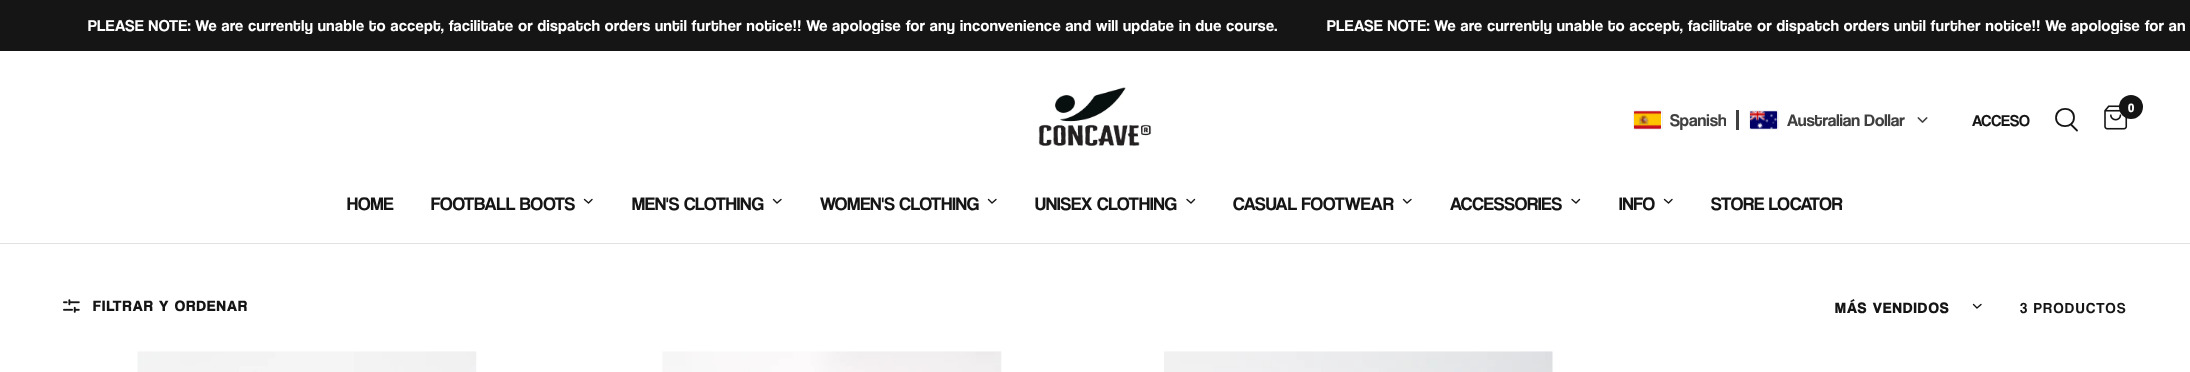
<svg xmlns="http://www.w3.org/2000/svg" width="2190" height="372">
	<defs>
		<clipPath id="clip1"><rect x="0" y="18" width="2190" height="16" /></clipPath>
		<clipPath id="clip2"><rect x="1670" y="108" width="56" height="25" /></clipPath>
	</defs>
	<rect width="100%" height="100%" fill="#FFFFFF" />
	<rect x="0" y="0" width="2190" height="51" fill="#151515" />
	<g clip-path="url(#clip1)">
		<g font-family="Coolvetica" font-size="16.25" letter-spacing="0.49" fill="#FFFFFF">
			<text x="88" y="31">PLEASE NOTE: We are currently unable to accept, facilitate or dispatch orders until further notice!! We apologise for any inconvenience and will update in due course.</text>
			<text x="1327" y="31">PLEASE NOTE: We are currently unable to accept, facilitate or dispatch orders until further notice!! We apologise for an</text>
		</g>
	</g>
	<rect x="0" y="243" width="2190" height="1" fill="#E2E2E2" />
	<image x="1038" y="87" width="114" height="59" href="assets/img1.png" />
	<rect x="1633.5" y="110.5" width="29" height="19" rx="2" fill="none" stroke="#F0F1F2" />
	<image x="1634" y="111" width="27" height="18" href="assets/img2.png" />
	<g clip-path="url(#clip2)">
		<text x="1670" y="126" font-family="Coolvetica" font-size="17.5" fill="#404040">Spanish</text>
	</g>
	<rect x="1736" y="110" width="3" height="20" fill="#404040" />
	<rect x="1749.5" y="110.5" width="29" height="19" rx="2" fill="none" stroke="#F0F1F2" />
	<image x="1750" y="111" width="28" height="18" href="assets/img3.png" />
	<text x="1787" y="126" font-family="Coolvetica" font-size="17.5" fill="#404040">Australian Dollar</text>
	<image x="1917" y="117" width="11" height="6" href="assets/img4.png" />
	<text x="1972" y="126" font-family="Coolvetica" font-size="16.25" fill="#151515">ACCESO</text>
	<path d="M2071 124.5L2077 130.5M2074 117.5C2074 129 2056 129 2056 117.5C2056.5 106 2074 106 2074 117.5Z" fill="none" stroke="#151515" stroke-width="1.8" stroke-linecap="round" stroke-linejoin="round" />
	<image x="2104" y="105" width="24" height="25" href="assets/img5.png" />
	<circle cx="2131" cy="107" r="12" fill="#151515" />
	<text x="2128" y="112" font-family="Coolvetica" font-size="12" font-weight="700" fill="#FFFFFF">0</text>
	<g font-family="Coolvetica" font-size="18.75" fill="#151515">
		<text x="347" y="210">HOME</text>
		<text x="431" y="210">FOOTBALL BOOTS</text>
	</g>
	<path d="M592 199.5L588.5 203L584.5 199.5" fill="none" stroke="#151515" stroke-width="1.4" stroke-linecap="round" stroke-linejoin="round" />
	<text x="632" y="210" font-family="Coolvetica" font-size="18.75" fill="#151515">MEN'S CLOTHING</text>
	<path d="M781 199.5L777 203L773.5 199.5" fill="none" stroke="#151515" stroke-width="1.4" stroke-linecap="round" stroke-linejoin="round" />
	<text x="820" y="210" font-family="Coolvetica" font-size="18.75" fill="#151515">WOMEN'S CLOTHING</text>
	<path d="M996 199.5L992 203L988.5 199.5" fill="none" stroke="#151515" stroke-width="1.4" stroke-linecap="round" stroke-linejoin="round" />
	<text x="1035" y="210" font-family="Coolvetica" font-size="18.75" fill="#151515">UNISEX CLOTHING</text>
	<path d="M1194.5 199.5L1191 203L1187 199.5" fill="none" stroke="#151515" stroke-width="1.4" stroke-linecap="round" stroke-linejoin="round" />
	<text x="1233" y="210" font-family="Coolvetica" font-size="18.75" fill="#151515">CASUAL FOOTWEAR</text>
	<path d="M1411 199.5L1407 203L1403.5 199.5" fill="none" stroke="#151515" stroke-width="1.4" stroke-linecap="round" stroke-linejoin="round" />
	<text x="1450" y="210" font-family="Coolvetica" font-size="18.75" fill="#151515">ACCESSORIES</text>
	<path d="M1579.5 199.5L1576 203L1572 199.5" fill="none" stroke="#151515" stroke-width="1.4" stroke-linecap="round" stroke-linejoin="round" />
	<text x="1619" y="210" font-family="Coolvetica" font-size="18.75" fill="#151515">INFO</text>
	<path d="M1672 199.5L1668.5 203L1664.5 199.5" fill="none" stroke="#151515" stroke-width="1.4" stroke-linecap="round" stroke-linejoin="round" />
	<text x="1711" y="210" font-family="Coolvetica" font-size="18.75" fill="#151515">STORE LOCATOR</text>
	<image x="63" y="299" width="17" height="14" href="assets/img6.png" />
	<g font-family="Coolvetica" font-size="15" font-weight="700" letter-spacing="1.5" fill="#151515">
		<text x="93" y="311">FILTRAR Y ORDENAR</text>
		<text x="1835" y="313">MÁS VENDIDOS</text>
	</g>
	<path d="M1981 304.5L1977 308L1973.5 304.5" fill="none" stroke="#151515" stroke-width="1.4" stroke-linecap="round" stroke-linejoin="round" />
	<text x="2020" y="313" font-family="Coolvetica" font-size="15" letter-spacing="1.5" fill="#151515">3 PRODUCTOS</text>
	<image x="137" y="351" width="340" height="21" href="assets/img7.png" />
	<image x="662" y="351" width="340" height="21" href="assets/img8.png" />
	<image x="1164" y="351" width="389" height="21" href="assets/img9.png" />
</svg>
